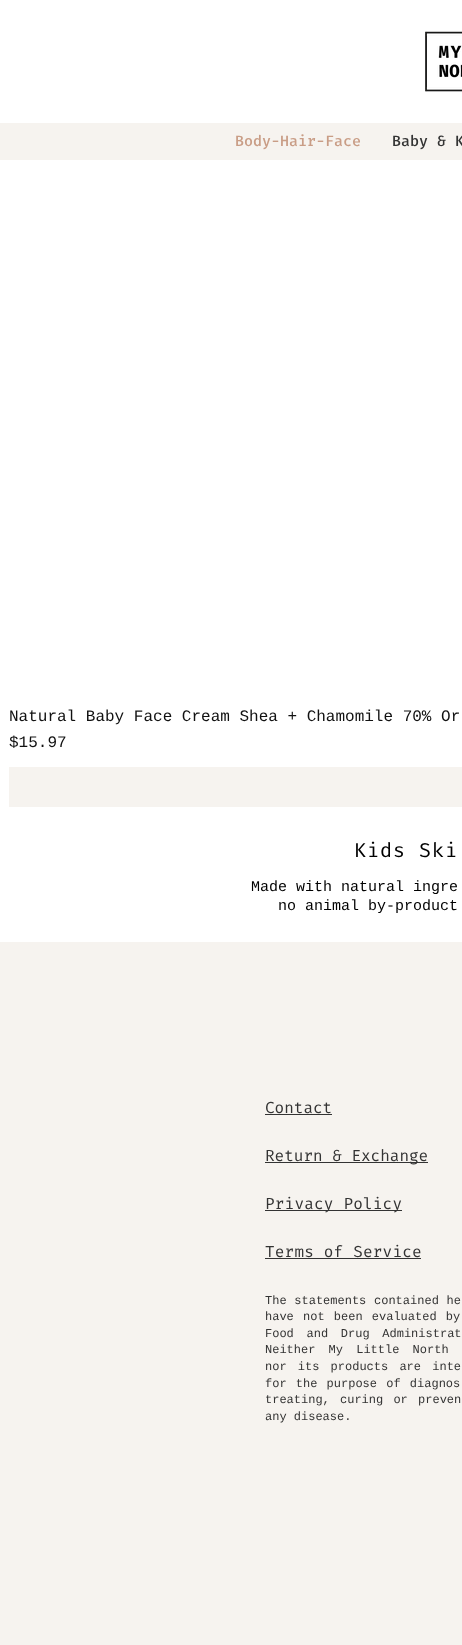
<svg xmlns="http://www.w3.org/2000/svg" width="462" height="1645">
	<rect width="100%" height="100%" fill="#FFFFFF" />
	<rect x="0" y="123" width="462" height="37" fill="#F6F3EF" />
	<image x="425" y="31" width="37" height="61" href="assets/img1.png" />
	<text x="235" y="146" font-family="Fira Mono" font-size="15" font-weight="500" fill="#C99D86">Body-Hair-Face</text>
	<text x="392" y="146" font-family="Fira Mono" font-size="15" font-weight="500" fill="#333333">Baby &amp; K</text>
	<g font-family="Liberation Mono" font-size="16" fill="#111111">
		<text x="9" y="721">Natural Baby Face Cream Shea + Chamomile 70% Or</text>
		<text x="9" y="747">$15.97</text>
	</g>
	<rect x="9" y="767" width="453" height="40" fill="#F6F3EF" />
	<text x="354" y="857" font-family="Fira Mono" font-size="20" letter-spacing="1" fill="#000000">Kids Ski</text>
	<g font-family="Liberation Mono" font-size="15" fill="#000000">
		<text x="251" y="891">Made with natural ingre</text>
		<text x="278" y="910">no animal by-product</text>
	</g>
	<rect x="0" y="942" width="462" height="703" fill="#F6F3EF" />
	<text x="265" y="1113" font-family="Fira Mono" font-size="16" fill="#333333">Contact</text>
	<rect x="265" y="1114" width="67" height="1" fill="#333333" />
	<rect x="265" y="1162" width="163" height="1" fill="#333333" />
	<text x="265" y="1161" font-family="Fira Mono" font-size="16" fill="#333333">Return &amp; Exchange</text>
	<rect x="265" y="1210" width="137" height="1" fill="#333333" />
	<g font-family="Fira Mono" font-size="16" letter-spacing="0.2" fill="#333333">
		<text x="265" y="1209">Privacy Policy</text>
		<text x="265" y="1257">Terms of Service</text>
	</g>
	<rect x="265" y="1258" width="156" height="1" fill="#333333" />
	<g font-family="Liberation Mono" font-size="12" fill="#333333">
		<text x="265" y="1304" word-spacing="0.5">The statements contained he</text>
		<text x="265" y="1320" word-spacing="2">have not been evaluated by</text>
		<text x="265" y="1337" word-spacing="5.5">Food and Drug Administrat</text>
		<text x="265" y="1353" word-spacing="6">Neither My Little North</text>
		<text x="265" y="1370" word-spacing="4">nor its products are inte</text>
		<text x="265" y="1387" word-spacing="2">for the purpose of diagnos</text>
		<text x="265" y="1403" word-spacing="3">treating, curing or preven</text>
		<text x="265" y="1420">any disease.</text>
	</g>
</svg>
